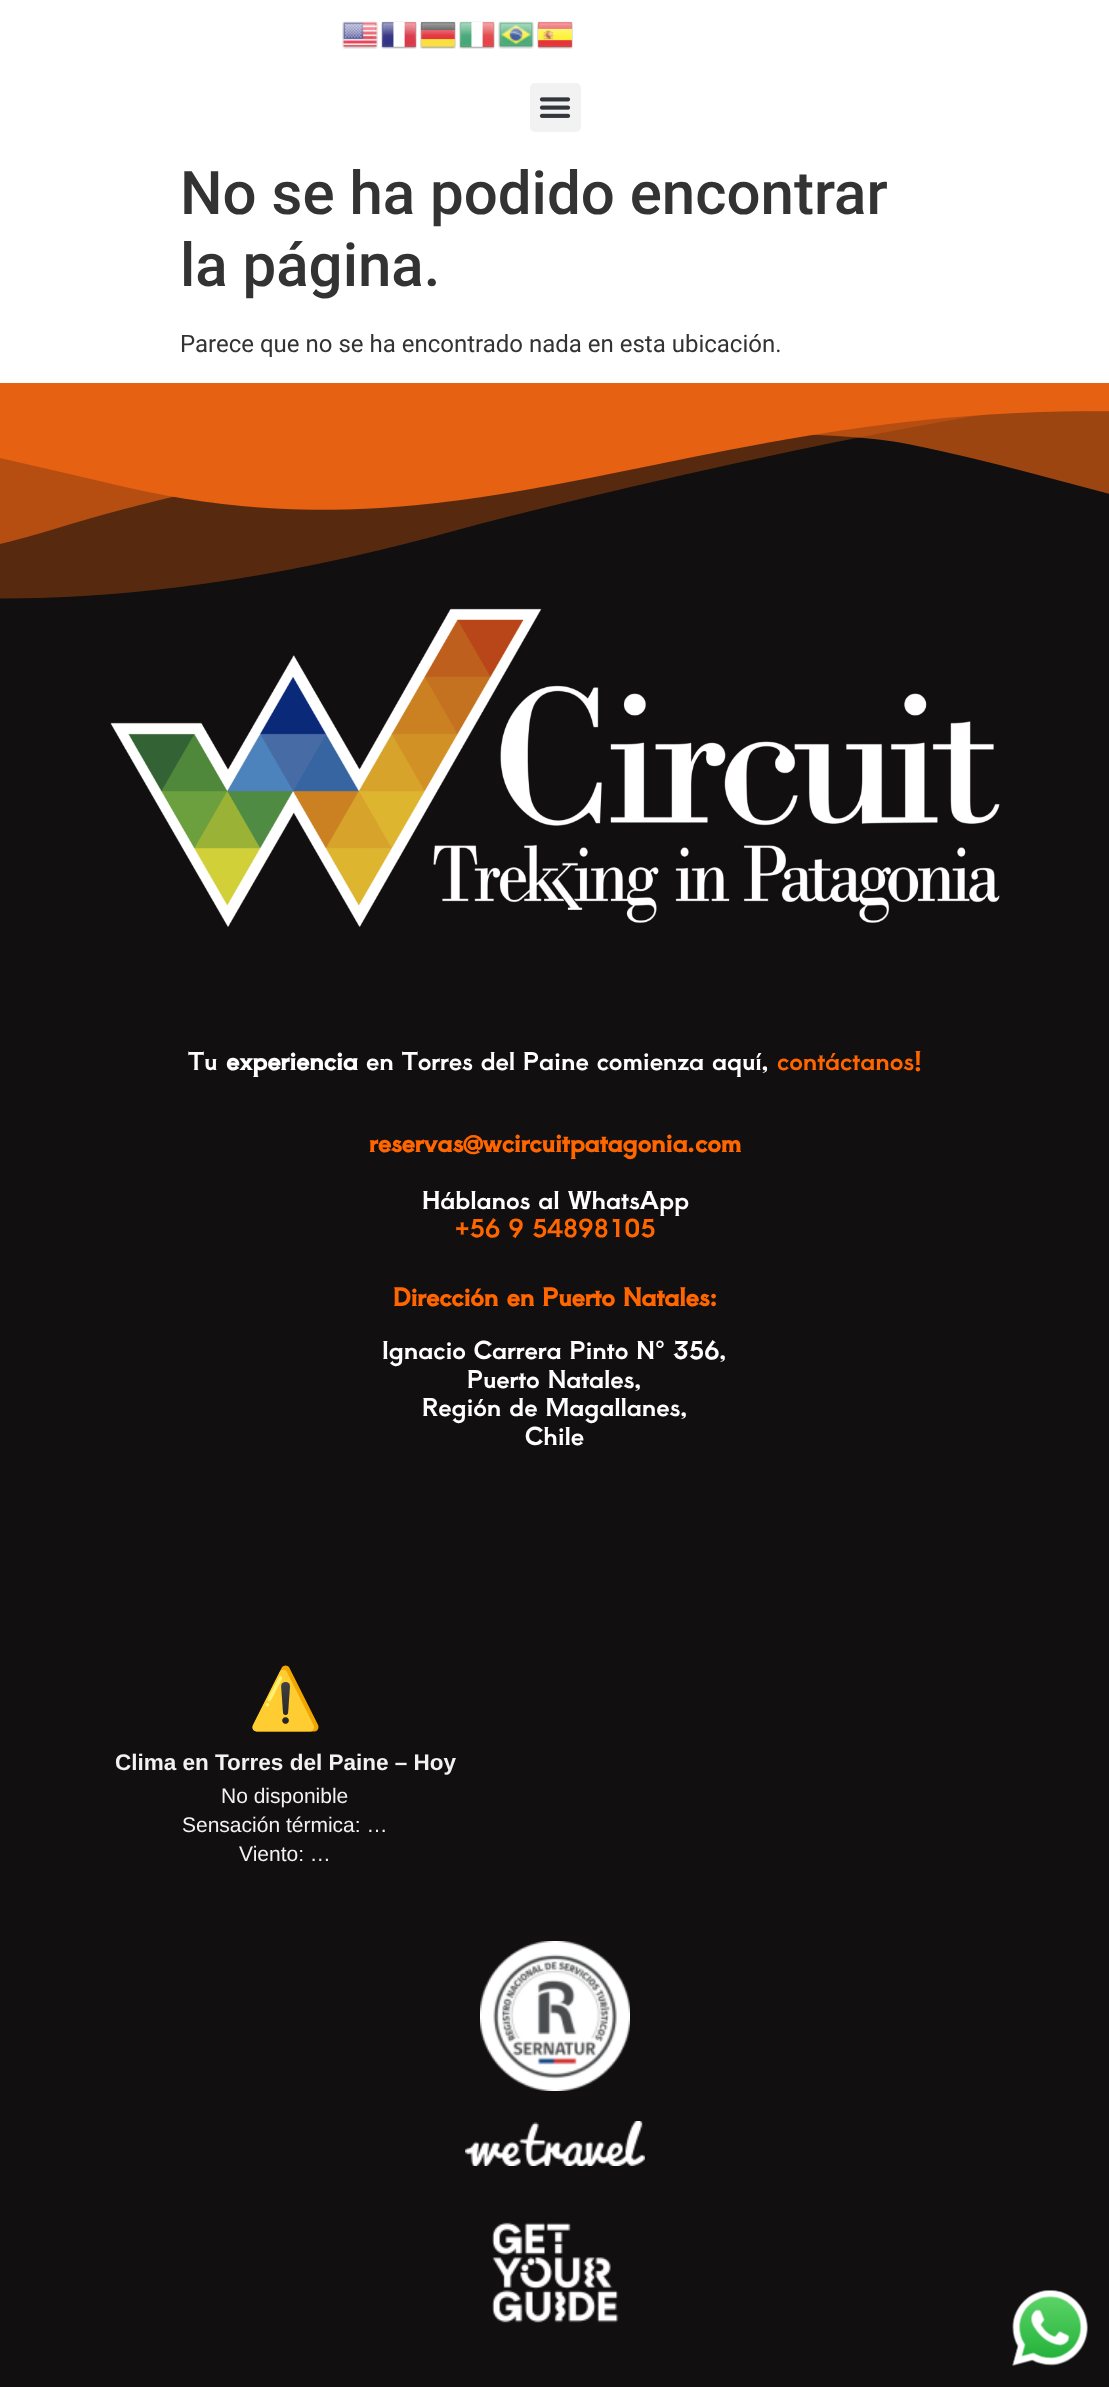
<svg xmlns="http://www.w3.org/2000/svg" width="1109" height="2387">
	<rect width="100%" height="100%" fill="#FFFFFF" />
	<image x="342" y="21" width="36" height="28" href="assets/img1.png" />
	<image x="381" y="21" width="36" height="28" href="assets/img2.png" />
	<image x="420" y="21" width="36" height="28" href="assets/img3.png" />
	<image x="459" y="21" width="36" height="28" href="assets/img4.png" />
	<image x="498" y="21" width="36" height="28" href="assets/img5.png" />
	<image x="537" y="21" width="36" height="28" href="assets/img6.png" />
	<rect x="530" y="83" width="51" height="49" rx="5" fill="#F2F2F2" />
	<image x="539" y="97" width="32" height="21" href="assets/img7.png" />
	<g font-family="Roboto" font-size="60" font-weight="500" fill="#333333">
		<text x="180" y="214">No se ha podido encontrar</text>
		<text x="180" y="286">la página.</text>
	</g>
	<text x="180" y="352" font-family="Roboto" font-size="24" fill="#333333">Parece que no se ha encontrado nada en esta ubicación.</text>
	<rect x="0" y="411" width="1109" height="1976" fill="#110F0F" />
	<image x="0" y="383" width="1109" height="216" href="assets/img8.png" />
	<image x="110" y="608" width="890" height="319" href="assets/img9.png" />
	<text x="188" y="1070" font-family="Aoboshi One" font-size="24" letter-spacing="-0.15" fill="#FFFFFF">Tu</text>
	<text x="226" y="1070" font-family="Aoboshi One" font-size="24" font-weight="700" letter-spacing="-0.15" fill="#FFFFFF">experiencia</text>
	<text x="366" y="1070" word-spacing="1.5" font-family="Aoboshi One" font-size="24" letter-spacing="-0.15" fill="#FFFFFF">en Torres del Paine comienza aquí,</text>
	<text x="777" y="1070" font-family="Aoboshi One" font-size="24" letter-spacing="-0.15" fill="#FF6600">contáctanos!</text>
	<text x="369" y="1152" font-family="Aoboshi One" font-size="24" font-weight="700" letter-spacing="-0.15" fill="#FF6600">reservas@wcircuitpatagonia.com</text>
	<text x="422" y="1209" word-spacing="1.5" font-family="Aoboshi One" font-size="24" letter-spacing="-0.15" fill="#FFFFFF">Háblanos al WhatsApp</text>
	<text x="455" y="1237" word-spacing="1.5" font-family="Aoboshi One" font-size="24" letter-spacing="-0.15" fill="#FF6600">+56 9 54898105</text>
	<text x="393" y="1306" word-spacing="1.5" font-family="Aoboshi One" font-size="24" font-weight="700" letter-spacing="-0.15" fill="#FF6600">Dirección en Puerto Natales:</text>
	<g font-family="Aoboshi One" font-size="24" letter-spacing="-0.15" fill="#FFFFFF">
		<text x="382" y="1359" word-spacing="1.5">Ignacio Carrera Pinto N° 356,</text>
		<text x="467" y="1388" word-spacing="1.5">Puerto Natales,</text>
		<text x="422" y="1416" word-spacing="1.5">Región de Magallanes,</text>
		<text x="525" y="1445">Chile</text>
	</g>
	<text x="248" y="1719" font-family="Noto Color Emoji" font-size="60" fill="#F2F2F2">⚠️</text>
	<text x="115" y="1770" font-family="Liberation Sans" font-size="22.5" font-weight="700" fill="#F2F2F2">Clima en Torres del Paine – Hoy</text>
	<g font-family="Liberation Sans" font-size="21" fill="#F2F2F2">
		<text x="221" y="1803">No disponible</text>
		<text x="182" y="1832">Sensación térmica: …</text>
		<text x="239" y="1861">Viento: …</text>
	</g>
	<image x="480" y="1941" width="150" height="150" href="assets/img10.png" />
	<image x="465" y="2121" width="180" height="45" href="assets/img11.png" />
	<image x="492" y="2222" width="127" height="101" href="assets/img12.png" />
	<image x="1012" y="2290" width="76" height="76" href="assets/img13.png" />
</svg>
